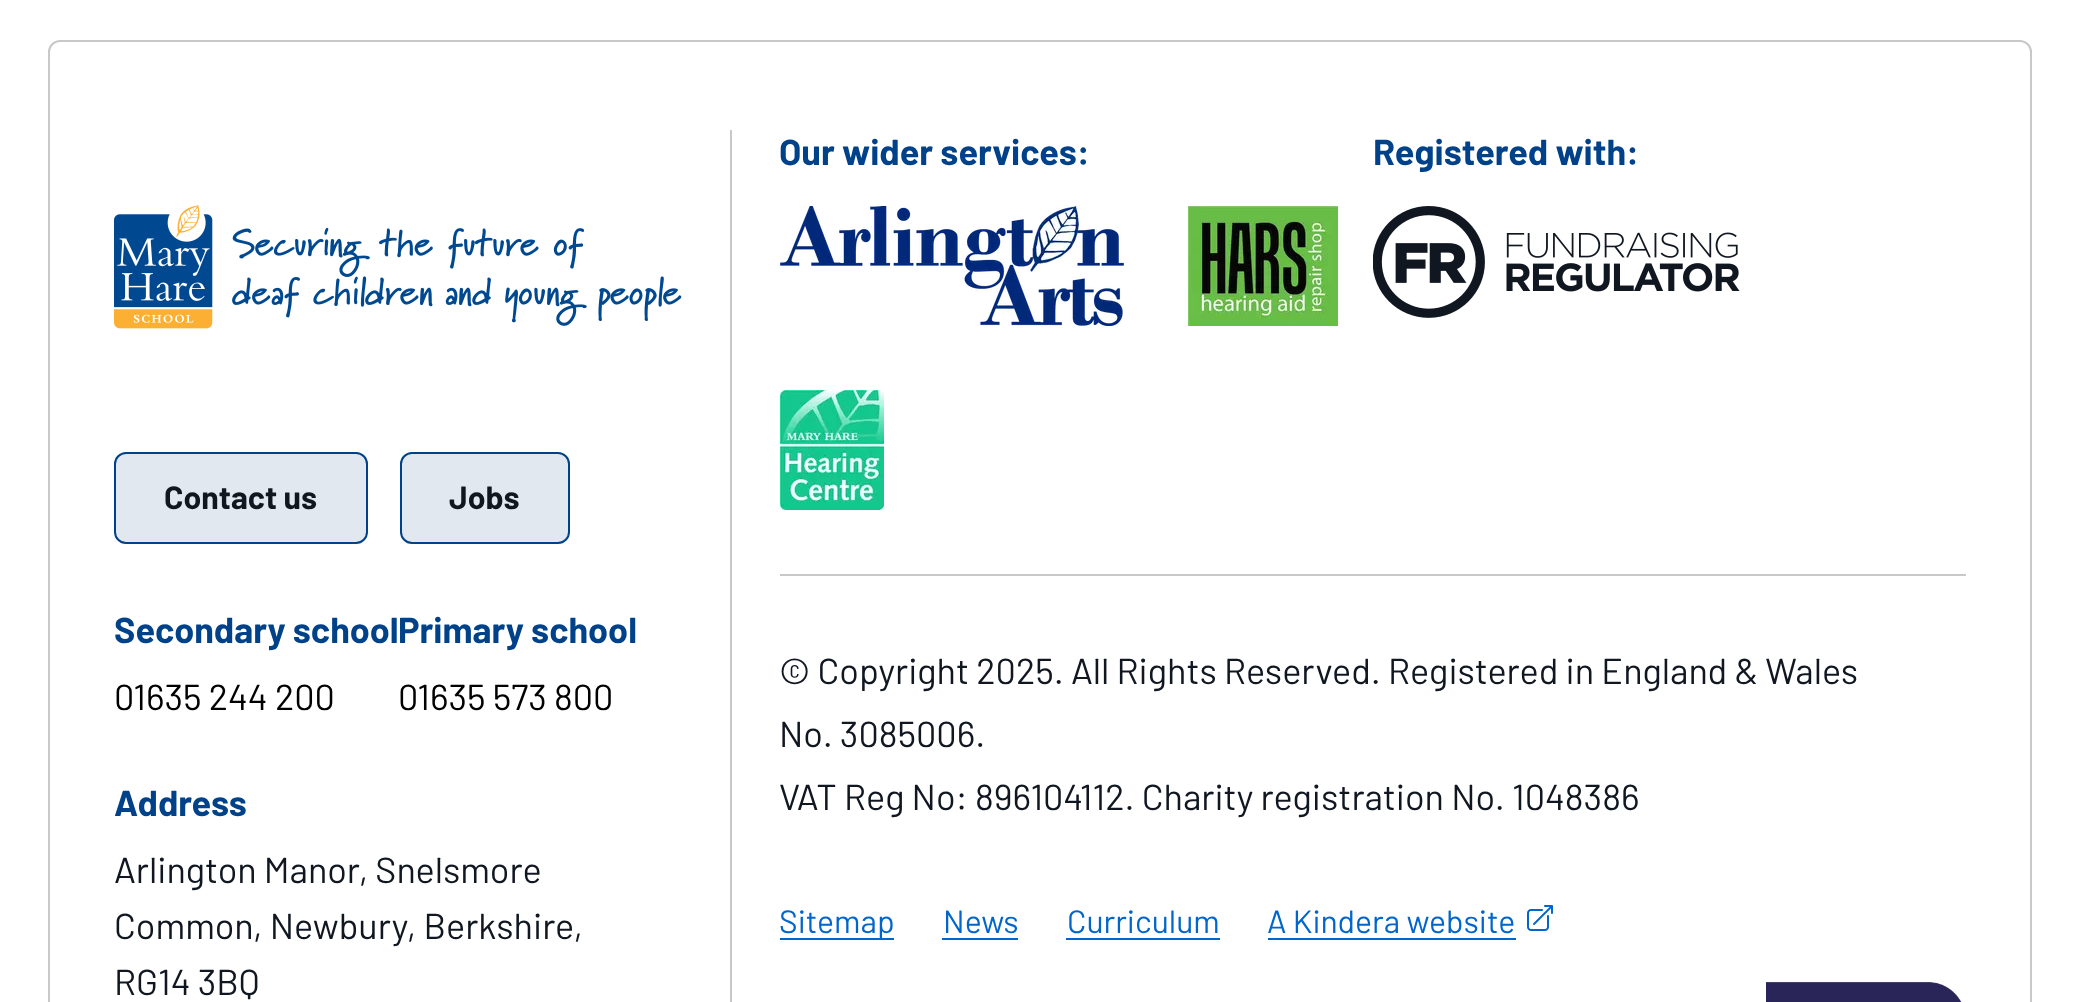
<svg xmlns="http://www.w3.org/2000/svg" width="2079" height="1002">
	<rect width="100%" height="100%" fill="#FFFFFF" />
	<rect x="49" y="41" width="1982" height="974" rx="11" fill="none" stroke="#C8C8C8" stroke-width="2" />
	<rect x="730" y="130" width="2" height="872" fill="#C8C8C8" />
	<image x="114" y="205" width="568" height="124" href="assets/img1.png" />
	<rect x="115" y="453" width="252" height="90" rx="11" fill="#E2E8F0" stroke="#004289" stroke-width="2" />
	<text x="164" y="509" font-family="Barlow" font-size="32" font-weight="700" fill="#101721">Contact us</text>
	<rect x="401" y="453" width="168" height="90" rx="11" fill="#E2E8F0" stroke="#004289" stroke-width="2" />
	<text x="449" y="509" font-family="Barlow" font-size="32" font-weight="700" fill="#101721">Jobs</text>
	<text x="114" y="643" font-family="Barlow" font-size="36" font-weight="700" fill="#004289">Secondary school</text>
	<text x="114" y="710" font-family="Barlow" font-size="36" fill="#000000">01635 244 200</text>
	<text x="398" y="643" font-family="Barlow" font-size="36" font-weight="700" fill="#004289">Primary school</text>
	<text x="398" y="710" font-family="Barlow" font-size="36" fill="#000000">01635 573 800</text>
	<text x="114" y="816" font-family="Barlow" font-size="36" font-weight="700" fill="#004289">Address</text>
	<g font-family="Barlow" font-size="36" fill="#101721">
		<text x="114" y="883">Arlington Manor, Snelsmore</text>
		<text x="114" y="939">Common, Newbury, Berkshire,</text>
		<text x="114" y="995">RG14 3BQ</text>
	</g>
	<text x="779" y="165" font-family="Barlow" font-size="36" font-weight="700" fill="#004289">Our wider services:</text>
	<image x="780" y="206" width="344" height="120" href="assets/img2.png" />
	<image x="1188" y="206" width="150" height="120" href="assets/img3.png" />
	<image x="780" y="390" width="104" height="120" href="assets/img4.png" />
	<text x="1373" y="165" font-family="Barlow" font-size="36" font-weight="700" fill="#004289">Registered with:</text>
	<image x="1373" y="206" width="367" height="112" href="assets/img5.png" />
	<rect x="780" y="574" width="1186" height="2" fill="#C8C8C8" />
	<g font-family="Barlow" font-size="36" fill="#101721">
		<text x="779" y="684">© Copyright 2025. All Rights Reserved. Registered in England &amp; Wales</text>
		<text x="779" y="747">No. 3085006.</text>
		<text x="779" y="810">VAT Reg No: 896104112. Charity registration No. 1048386</text>
	</g>
	<rect x="780" y="938" width="114" height="2" fill="#0066CC" />
	<g font-family="Barlow" font-size="32" fill="#0066CC">
		<text x="779" y="933">Sitemap</text>
		<text x="943" y="933">News</text>
	</g>
	<rect x="942" y="938" width="76" height="2" fill="#0066CC" />
	<text x="1067" y="933" font-family="Barlow" font-size="32" fill="#0066CC">Curriculum</text>
	<rect x="1066" y="938" width="154" height="2" fill="#0066CC" />
	<text x="1267" y="933" font-family="Barlow" font-size="32" fill="#0066CC">A Kindera website</text>
	<rect x="1268" y="938" width="248" height="2" fill="#0066CC" />
	<image x="1527" y="905" width="26" height="26" href="assets/img6.png" />
	<image x="1766" y="982" width="196" height="20" href="assets/img7.png" />
</svg>
